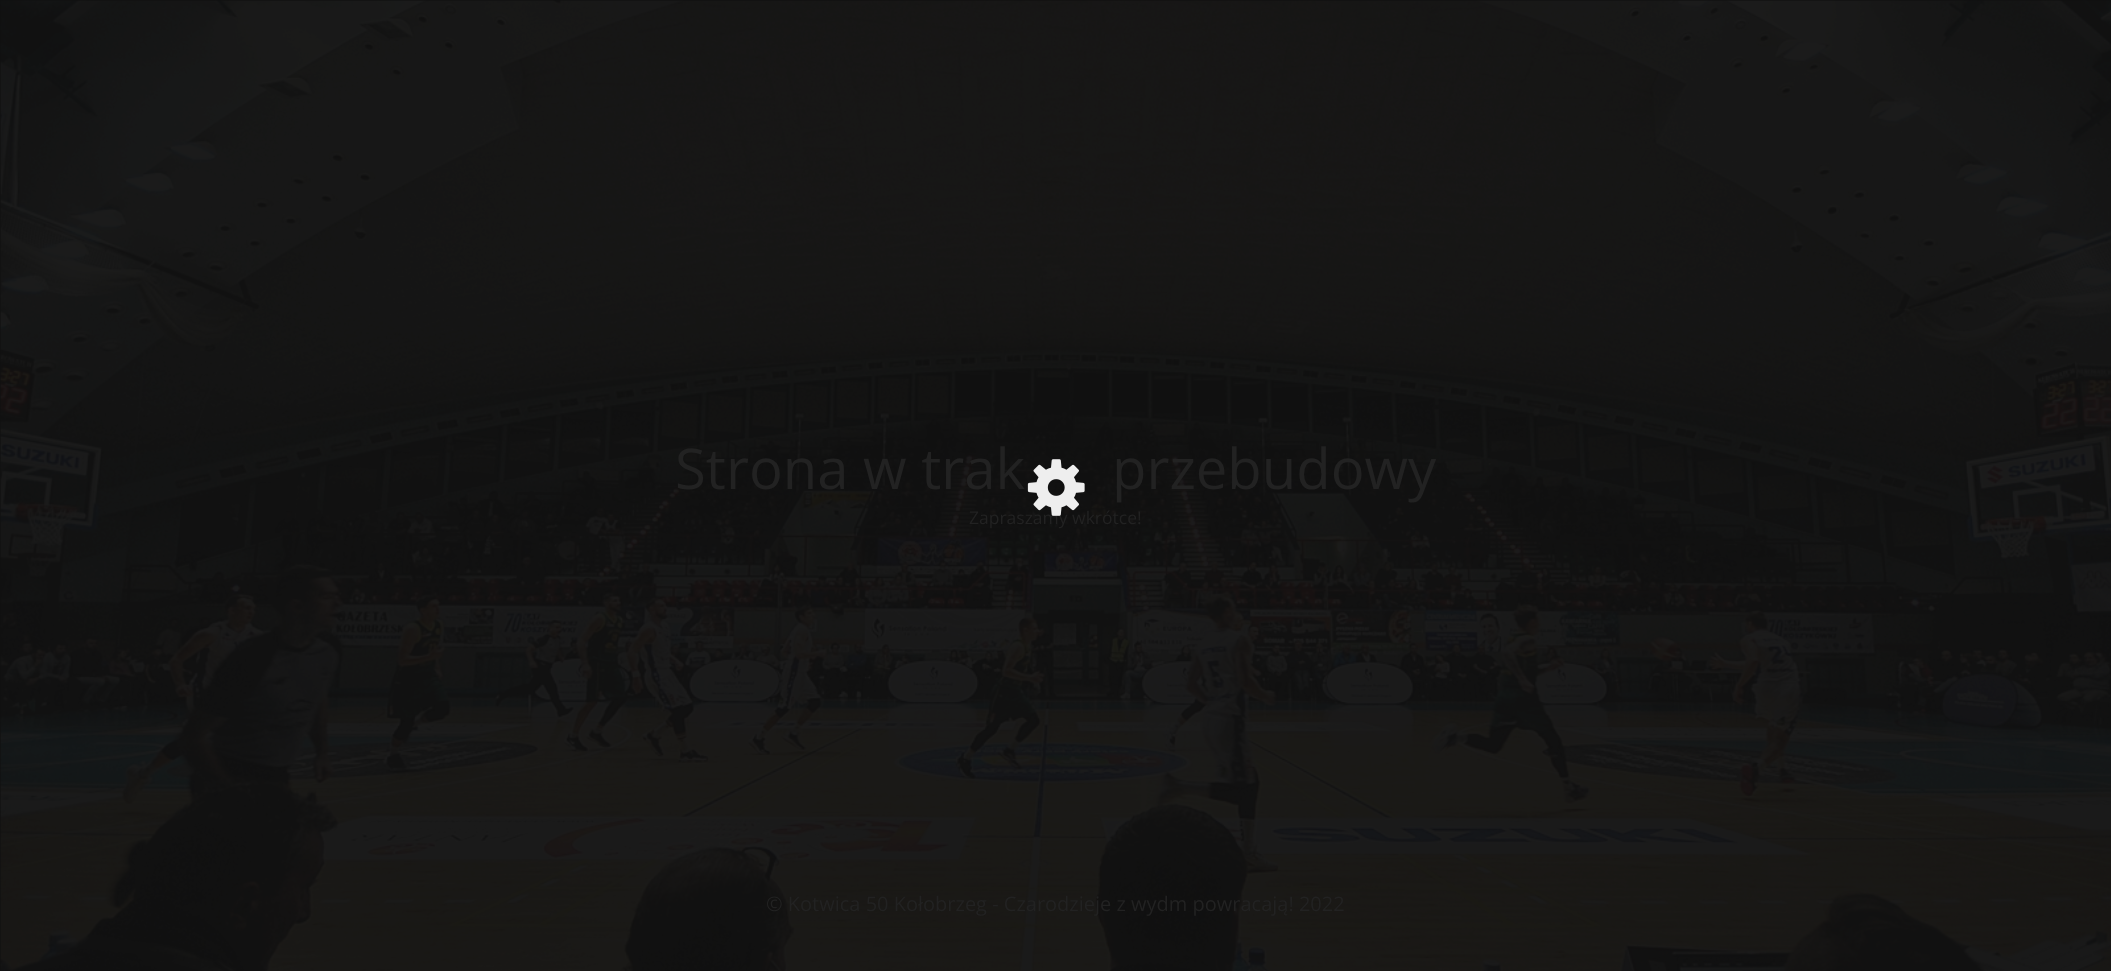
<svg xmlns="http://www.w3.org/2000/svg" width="2111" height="971">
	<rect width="100%" height="100%" fill="#111111" />
	<image x="0" y="0" width="2111" height="971" href="assets/img1.png" />
	<g font-family="Open Sans" font-size="56.25" fill="#222222">
		<text x="675" y="489">Strona w trak</text>
		<text x="1112" y="489">przebudowy</text>
	</g>
	<text x="969" y="524" font-family="Open Sans" font-size="17.5" fill="#222222">Zapraszamy wkrótce!</text>
	<image x="1027" y="459" width="58" height="57" href="assets/img2.png" />
	<text x="766" y="911" font-family="Open Sans" font-size="20" fill="#222222">© Kotwica 50 Kołobrzeg - Czarodzieje z wydm powracają! 2022</text>
</svg>
